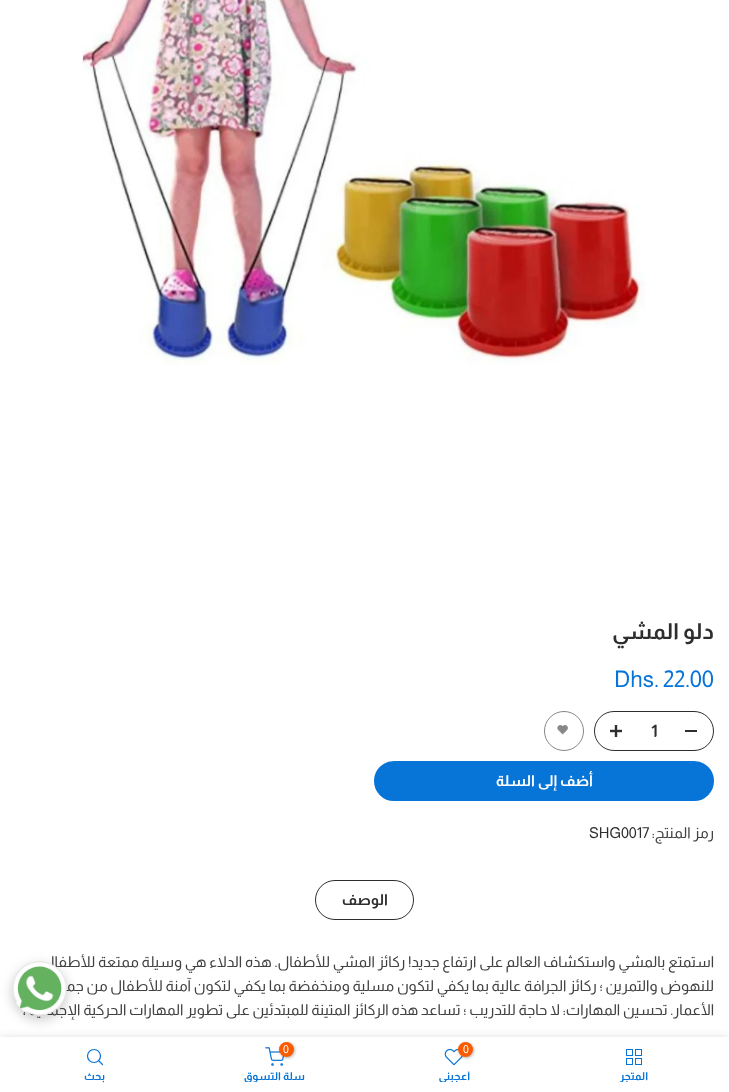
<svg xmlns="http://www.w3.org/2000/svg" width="729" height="1092">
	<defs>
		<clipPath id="clip1"><rect x="554" y="1071" width="160" height="11" /></clipPath>
		<clipPath id="clip2"><rect x="375" y="1071" width="159" height="11" /></clipPath>
		<clipPath id="clip3"><rect x="195" y="1071" width="160" height="11" /></clipPath>
	</defs>
	<rect width="100%" height="100%" fill="#FFFFFF" />
	<image x="81" y="0" width="564" height="365" href="assets/img1.png" />
	<text x="714" y="639" font-family="Almarai" font-size="22" font-weight="700" direction="rtl" fill="#2E2E2E">دلو المشي</text>
	<text x="614" y="687" font-family="Almarai" font-size="23" fill="#0774D7">Dhs. 22.00</text>
	<rect x="594.5" y="711.5" width="119" height="39" rx="19.5" fill="none" stroke="#2E2E2E" />
	<rect x="685" y="730" width="12" height="2" fill="#2E2E2E" />
	<text x="651" y="737" font-family="Almarai" font-size="17" font-weight="700" fill="#2E2E2E">1</text>
	<image x="610" y="725" width="12" height="12" href="assets/img2.png" />
	<circle cx="564" cy="731" r="19.5" fill="none" stroke="#878787" />
	<image x="557" y="725" width="11" height="10" href="assets/img3.png" />
	<rect x="375" y="762" width="338" height="38" rx="19" fill="#0774D7" stroke="#0774D7" stroke-width="2" />
	<text x="593" y="786" font-family="Almarai" font-size="15" font-weight="700" direction="rtl" fill="#FFFFFF">أضف إلى السلة</text>
	<text x="714" y="838" font-family="Almarai" font-size="15" direction="rtl" fill="#414142">رمز المنتج:</text>
	<text x="589" y="838" font-family="Almarai" font-size="15" fill="#2E2E2E">SHG0017</text>
	<rect x="315.5" y="880.5" width="98" height="39" rx="19.5" fill="none" stroke="#2E2E2E" />
	<text x="388" y="905" font-family="Almarai" font-size="15" font-weight="700" direction="rtl" fill="#2E2E2E">الوصف</text>
	<g font-family="Almarai" font-size="15" direction="rtl" fill="#414142">
		<text x="714" y="967">استمتع بالمشي واستكشاف العالم على ارتفاع جديد! ركائز المشي للأطفال. هذه الدلاء هي وسيلة ممتعة للأطفال</text>
		<text x="714" y="991">للنهوض والتمرين ؛ ركائز الجرافة عالية بما يكفي لتكون مسلية ومنخفضة بما يكفي لتكون آمنة للأطفال من جميع</text>
		<text x="714" y="1015">الأعمار. تحسين المهارات: لا حاجة للتدريب ؛ تساعد هذه الركائز المتينة للمبتدئين على تطوير المهارات الحركية الإجمالية ،</text>
	</g>
	<rect x="0" y="1037" width="729" height="55" fill="#000000" fill-opacity="0.12" filter="blur(4.5px)" />
	<rect x="0" y="1037" width="729" height="55" fill="#FFFFFF" />
	<rect x="12" y="965" width="55" height="55" rx="27.5" fill="#000000" fill-opacity="0.2" filter="blur(6px)" />
	<image x="12" y="961" width="55" height="55" href="assets/img4.png" />
	<image x="626" y="1049" width="16" height="16" href="assets/img5.png" />
	<g clip-path="url(#clip1)">
		<text x="648" y="1080" font-family="Almarai" font-size="11" font-weight="700" direction="rtl" fill="#0774D7">المتجر</text>
	</g>
	<image x="444" y="1048" width="19" height="18" href="assets/img6.png" />
	<rect x="459" y="1043" width="15" height="15" rx="7.5" fill="#000000" fill-opacity="0.3" filter="blur(1.5px)" />
	<circle cx="465.5" cy="1049.5" r="7.5" fill="#FB5A00" />
	<text x="463" y="1053" font-family="Almarai" font-size="11" fill="#FFFFFF">0</text>
	<g clip-path="url(#clip2)">
		<text x="470" y="1080" font-family="Almarai" font-size="11" font-weight="700" direction="rtl" fill="#0774D7">أعجبني</text>
	</g>
	<image x="265" y="1047" width="19" height="19" href="assets/img7.png" />
	<rect x="280" y="1043" width="15" height="15" rx="7.5" fill="#000000" fill-opacity="0.3" filter="blur(1.5px)" />
	<circle cx="286.5" cy="1049.5" r="7.5" fill="#FB5A00" />
	<text x="283" y="1053" font-family="Almarai" font-size="11" fill="#FFFFFF">0</text>
	<g clip-path="url(#clip3)">
		<text x="305" y="1080" font-family="Almarai" font-size="11" font-weight="700" direction="rtl" fill="#0774D7">سلة التسوق</text>
	</g>
	<circle cx="94" cy="1056" r="6.5" fill="none" stroke="#0774D7" stroke-width="1.2" />
	<path d="M102.5 1064.5L99 1061" fill="none" stroke="#0774D7" stroke-width="1.2" stroke-linecap="round" stroke-linejoin="round" />
	<text x="105" y="1080" font-family="Almarai" font-size="11" font-weight="700" direction="rtl" fill="#0774D7">بحث</text>
</svg>
